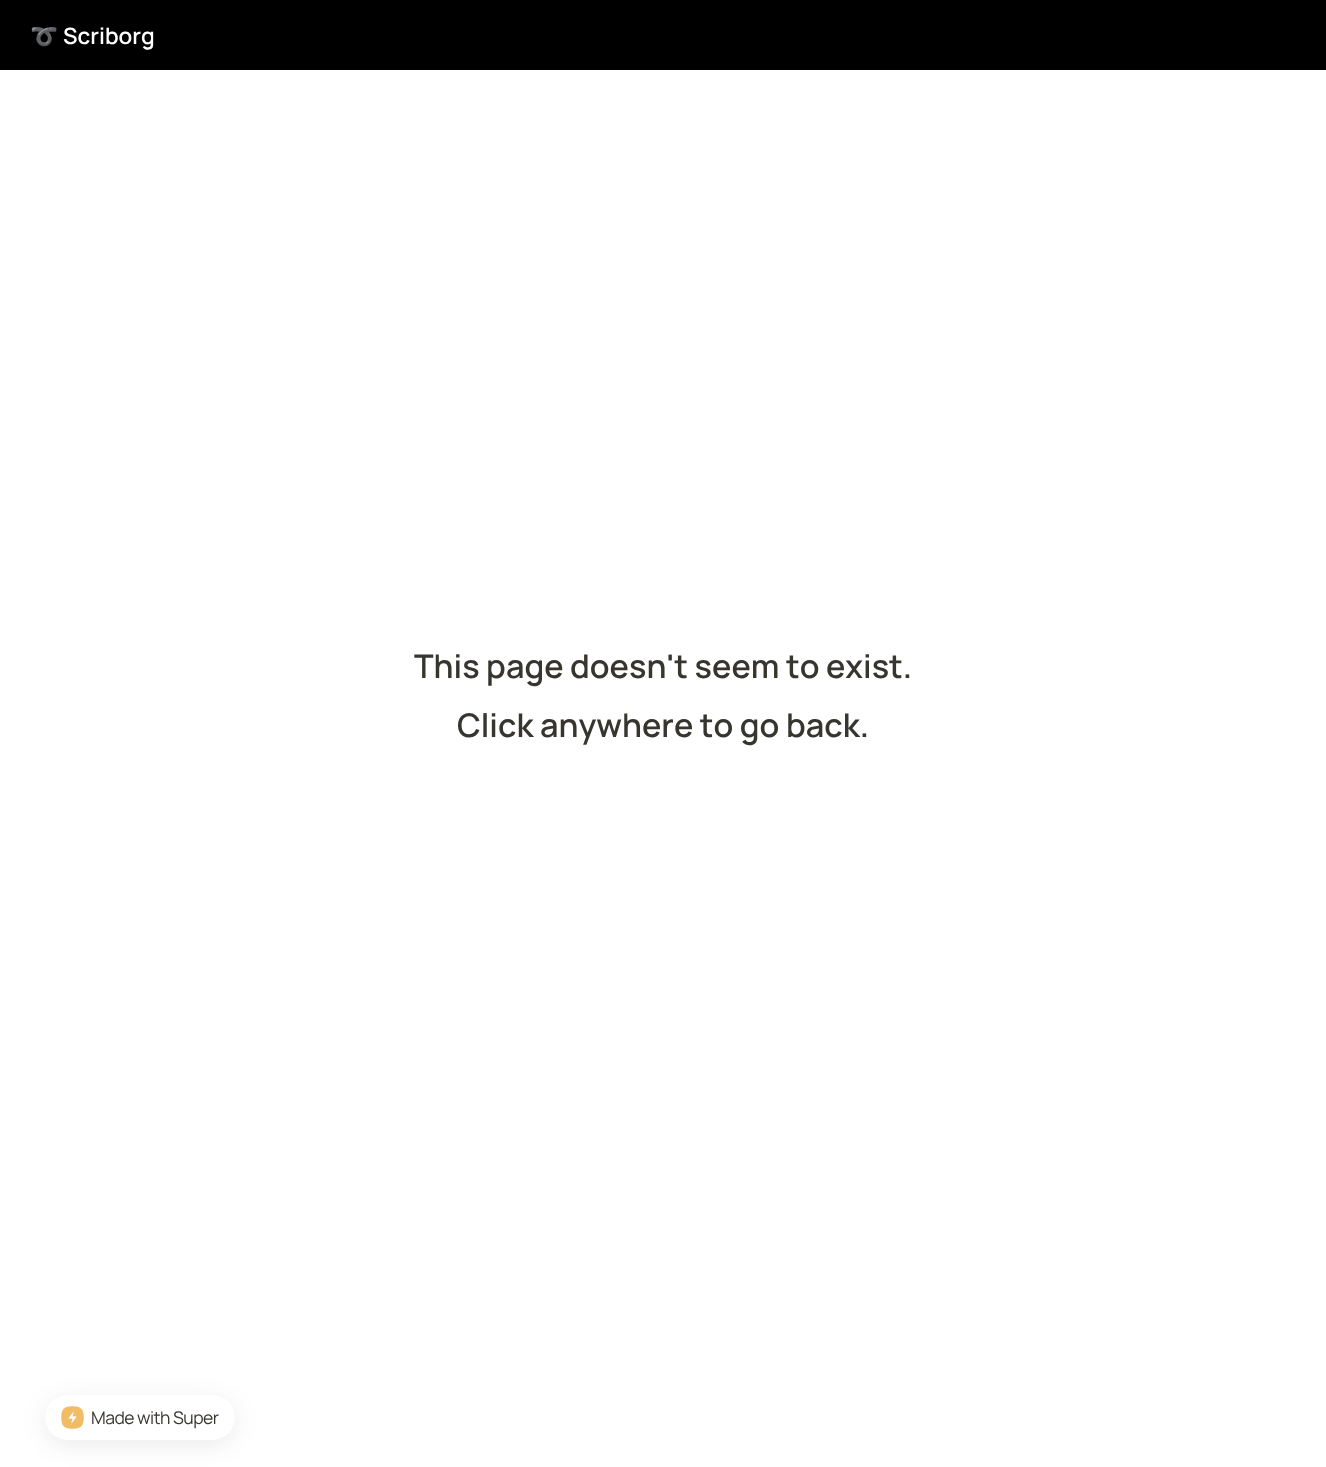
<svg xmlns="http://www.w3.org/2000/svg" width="1326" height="1467">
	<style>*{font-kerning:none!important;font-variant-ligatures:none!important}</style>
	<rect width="100%" height="100%" fill="#FFFFFF" />
	<rect x="0" y="0" width="1326" height="70" fill="#000000" />
	<text x="30" y="44" font-family="Noto Color Emoji" font-size="22.5" fill="#FFFFFF">➰</text>
	<text x="63" y="44" font-family="Manrope" font-size="22.5" font-weight="600" fill="#FFFFFF">Scriborg</text>
	<g font-family="Manrope" font-size="32.5" font-weight="600" fill="#37352F">
		<text x="414" y="678">This page doesn't seem to exist.</text>
		<text x="457" y="737">Click anywhere to go back.</text>
	</g>
	<rect x="45" y="1400" width="190" height="45" rx="22.5" fill="#000000" fill-opacity="0.08" filter="blur(12.5px)" />
	<rect x="45" y="1395" width="190" height="45" rx="22.5" fill="#FFFFFF" />
	<image x="61" y="1406" width="23" height="23" href="assets/img1.png" />
	<text x="91" y="1424" font-family="Manrope" font-size="17.5" letter-spacing="-0.5" fill="#37352F">Made with Super</text>
</svg>
